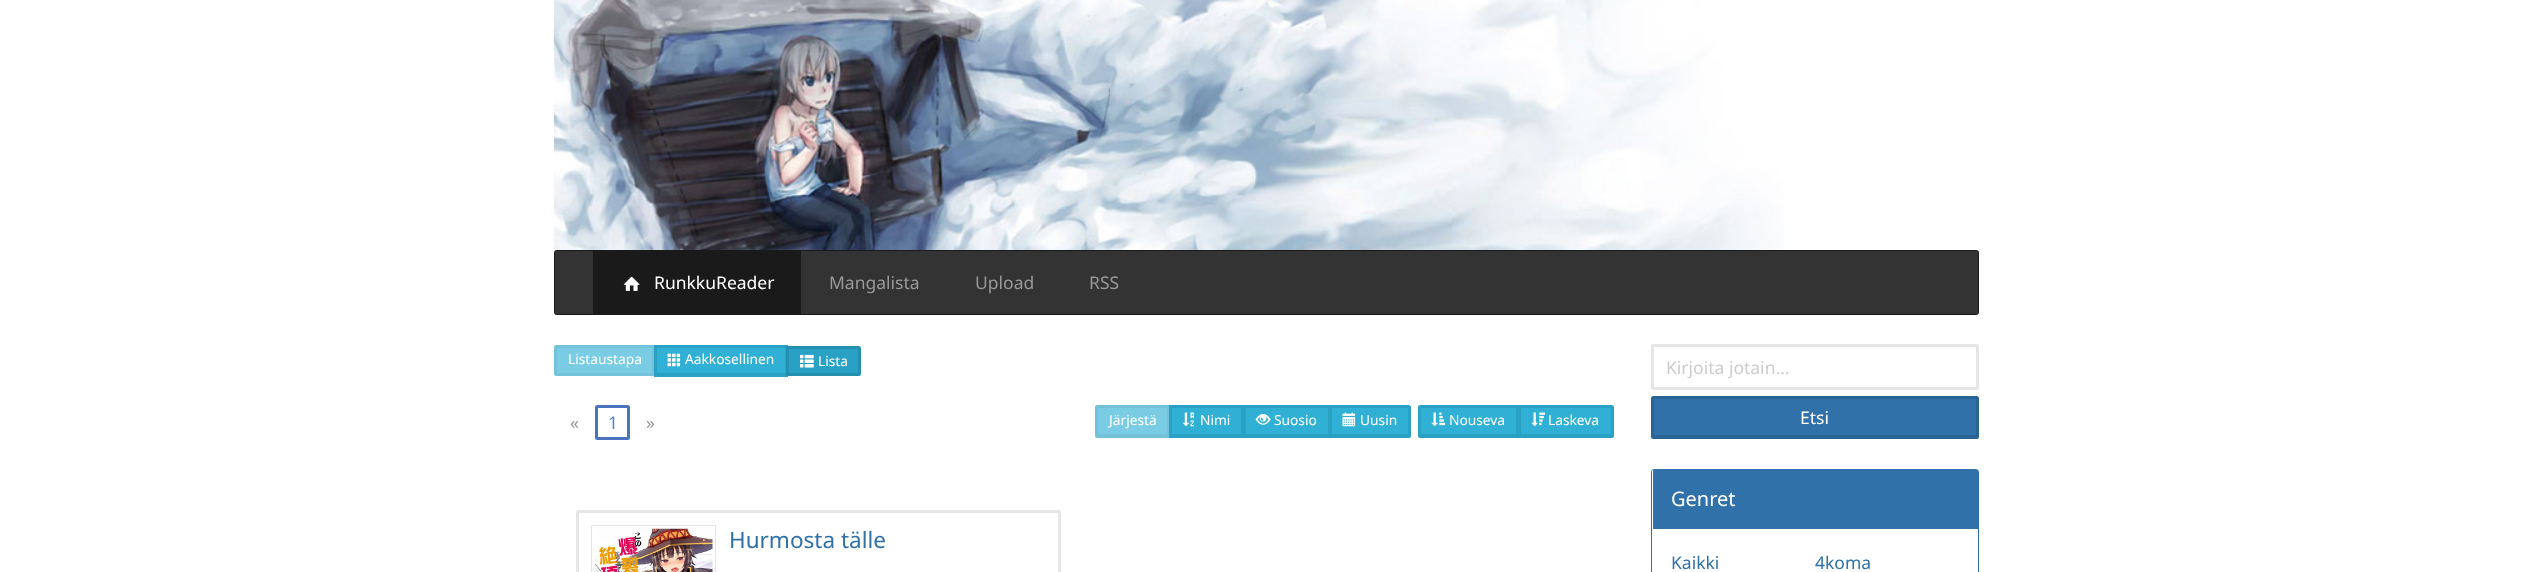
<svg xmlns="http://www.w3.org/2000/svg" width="2532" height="572">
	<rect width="100%" height="100%" fill="#FFFFFF" />
	<image x="553" y="0" width="1231" height="250" href="assets/img1.png" />
	<rect x="554.5" y="250.5" width="1424" height="64" rx="2" fill="#333333" stroke="#1A1A1A" />
	<rect x="593" y="251" width="208" height="63" fill="#1A1A1A" />
	<image x="623" y="276" width="17" height="15" href="assets/img2.png" />
	<text x="654" y="289" font-family="Noto Sans" font-size="17.5" fill="#FFFFFF">RunkkuReader</text>
	<g font-family="Noto Sans" font-size="17.5" fill="#999999">
		<text x="829" y="289">Mangalista</text>
		<text x="975" y="289">Upload</text>
		<text x="1089" y="289">RSS</text>
	</g>
	<path d="M556.5 346.5H653.5V374.5H556.5C556 374.5 555.5 374 555.5 373.5V347.5C555.5 347 556 346.5 556.5 346.5Z" fill="#79CCE4" stroke="#73C2D9" stroke-width="3" />
	<text x="568" y="364" font-family="Noto Sans" font-size="13.75" fill="#FFFFFF">Listaustapa</text>
	<rect x="657" y="348" width="128" height="25" fill="#31B0D5" />
	<rect x="654" y="345" width="134" height="3" fill="#28A1C4" />
	<rect x="785" y="345" width="3" height="31" fill="#28A1C4" />
	<rect x="654" y="373" width="134" height="4" fill="#28A1C4" />
	<rect x="654" y="345" width="3" height="31" fill="#28A1C4" />
	<image x="667" y="353" width="14" height="14" href="assets/img3.png" />
	<text x="685" y="364" font-family="Noto Sans" font-size="13.75" fill="#FFFFFF">Aakkosellinen</text>
	<path d="M787.5 347.5H858.5C859 347.5 859.5 348 859.5 348.5V373.5C859.5 374 859 374.5 858.5 374.5H787.5Z" fill="#28A1C4" stroke="#2490AF" stroke-width="3" />
	<image x="800" y="354" width="14" height="14" href="assets/img4.png" />
	<text x="818" y="366" font-family="Noto Sans" font-size="13.75" fill="#FFFFFF">Lista</text>
	<text x="570" y="429" font-family="Noto Sans" font-size="17.5" fill="#999999">«</text>
	<rect x="596.5" y="406.5" width="32" height="32" rx="1" fill="none" stroke="#4C73BF" stroke-width="3" />
	<text x="608" y="429" font-family="Noto Sans" font-size="17.5" fill="#4C86BF">1</text>
	<text x="646" y="429" font-family="Noto Sans" font-size="17.5" fill="#999999">»</text>
	<rect x="1098" y="408" width="69" height="26" fill="#79CCE4" />
	<path d="M1097.5 406.5H1168.5V436.5H1097.5C1097 436.5 1096.5 436 1096.5 435.5V407.5C1096.5 407 1097 406.5 1097.5 406.5Z" fill="none" stroke="#73C2D9" stroke-width="3" />
	<rect x="1096" y="434" width="74" height="1" fill="#73C2D9" />
	<text x="1109" y="425" font-family="Noto Sans" font-size="13.75" fill="#FFFFFF">Järjestä</text>
	<rect x="1172" y="408" width="69" height="26" fill="#31B0D5" />
	<rect x="1169" y="405" width="161" height="3" fill="#28A1C4" />
	<rect x="1241" y="405" width="2" height="33" fill="#28A1C4" />
	<rect x="1169" y="434" width="75" height="4" fill="#28A1C4" />
	<rect x="1169" y="405" width="3" height="33" fill="#28A1C4" />
	<image x="1182" y="412" width="12" height="15" href="assets/img5.png" />
	<text x="1200" y="425" font-family="Noto Sans" font-size="13.75" fill="#FFFFFF">Nimi</text>
	<rect x="1246" y="408" width="82" height="26" fill="#31B0D5" />
	<rect x="1328" y="405" width="1" height="33" fill="#28A1C4" />
	<rect x="1243" y="434" width="87" height="4" fill="#28A1C4" />
	<rect x="1243" y="405" width="3" height="33" fill="#28A1C4" />
	<image x="1255" y="413" width="16" height="12" href="assets/img6.png" />
	<text x="1274" y="425" font-family="Noto Sans" font-size="13.75" fill="#FFFFFF">Suosio</text>
	<rect x="1332" y="408" width="76" height="26" fill="#31B0D5" />
	<path d="M1330.5 406.5H1408.5C1409 406.5 1409.5 407 1409.5 407.5V435.5C1409.5 436 1409 436.5 1408.5 436.5H1330.5Z" fill="none" stroke="#28A1C4" stroke-width="3" />
	<rect x="1329" y="434" width="81" height="1" fill="#28A1C4" />
	<image x="1342" y="412" width="14" height="15" href="assets/img7.png" />
	<text x="1360" y="425" font-family="Noto Sans" font-size="13.75" fill="#FFFFFF">Uusin</text>
	<rect x="1421" y="408" width="95" height="26" fill="#31B0D5" />
	<path d="M1420.5 406.5H1517.5V436.5H1420.5C1420 436.5 1419.5 436 1419.5 435.5V407.5C1419.5 407 1420 406.5 1420.5 406.5Z" fill="none" stroke="#28A1C4" stroke-width="3" />
	<rect x="1419" y="434" width="100" height="1" fill="#28A1C4" />
	<image x="1431" y="412" width="14" height="15" href="assets/img8.png" />
	<text x="1449" y="425" font-family="Noto Sans" font-size="13.75" fill="#FFFFFF">Nouseva</text>
	<rect x="1521" y="408" width="90" height="26" fill="#31B0D5" />
	<path d="M1519.5 406.5H1611.5C1612 406.5 1612.5 407 1612.5 407.5V435.5C1612.5 436 1612 436.5 1611.5 436.5H1519.5Z" fill="none" stroke="#28A1C4" stroke-width="3" />
	<rect x="1518" y="434" width="95" height="1" fill="#28A1C4" />
	<image x="1531" y="412" width="14" height="15" href="assets/img9.png" />
	<text x="1548" y="425" font-family="Noto Sans" font-size="13.75" fill="#FFFFFF">Laskeva</text>
	<rect x="577.5" y="511.5" width="482" height="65" rx="1" fill="none" stroke="#E6E6E6" stroke-width="3" />
	<rect x="591.5" y="525.5" width="124" height="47" fill="none" stroke="#E5E5E5" />
	<image x="595" y="528" width="118" height="44" href="assets/img10.png" />
	<text x="729" y="548" font-family="Noto Sans" font-size="22.5" fill="#3071A9">Hurmosta tälle</text>
	<rect x="1652.5" y="345.5" width="325" height="43" rx="1" fill="none" stroke="#E6E6E6" stroke-width="3" />
	<text x="1666" y="374" font-family="Noto Sans" font-size="17.5" fill="#CCCCCC">Kirjoita jotain...</text>
	<rect x="1654" y="399" width="322" height="36" fill="#3071A9" />
	<rect x="1652.5" y="397.5" width="325" height="40" rx="1" fill="none" stroke="#2A6495" stroke-width="3" />
	<rect x="1653" y="435" width="325" height="1" fill="#2A6495" />
	<text x="1800" y="424" font-family="Noto Sans" font-size="17.5" fill="#FFFFFF">Etsi</text>
	<path d="M1653.5 469.5H1976.5C1977.5 469.5 1978.5 470.5 1978.5 471.5V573C1978.5 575.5 1976.5 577.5 1974 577.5H1656C1653.5 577.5 1651.5 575.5 1651.5 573V471.5C1651.5 470.5 1652.5 469.5 1653.5 469.5Z" fill="none" stroke="#3071A9" />
	<path d="M1654 470H1977C1977.5 470 1978 470.5 1978 471V529H1653V471C1653 470.5 1653.5 470 1654 470Z" fill="#3071A9" />
	<text x="1671" y="506" font-family="Noto Sans" font-size="20" fill="#FFFFFF">Genret</text>
	<g font-family="Noto Sans" font-size="17.5" fill="#3071A9">
		<text x="1671" y="569">Kaikki</text>
		<text x="1815" y="569">4koma</text>
	</g>
</svg>
